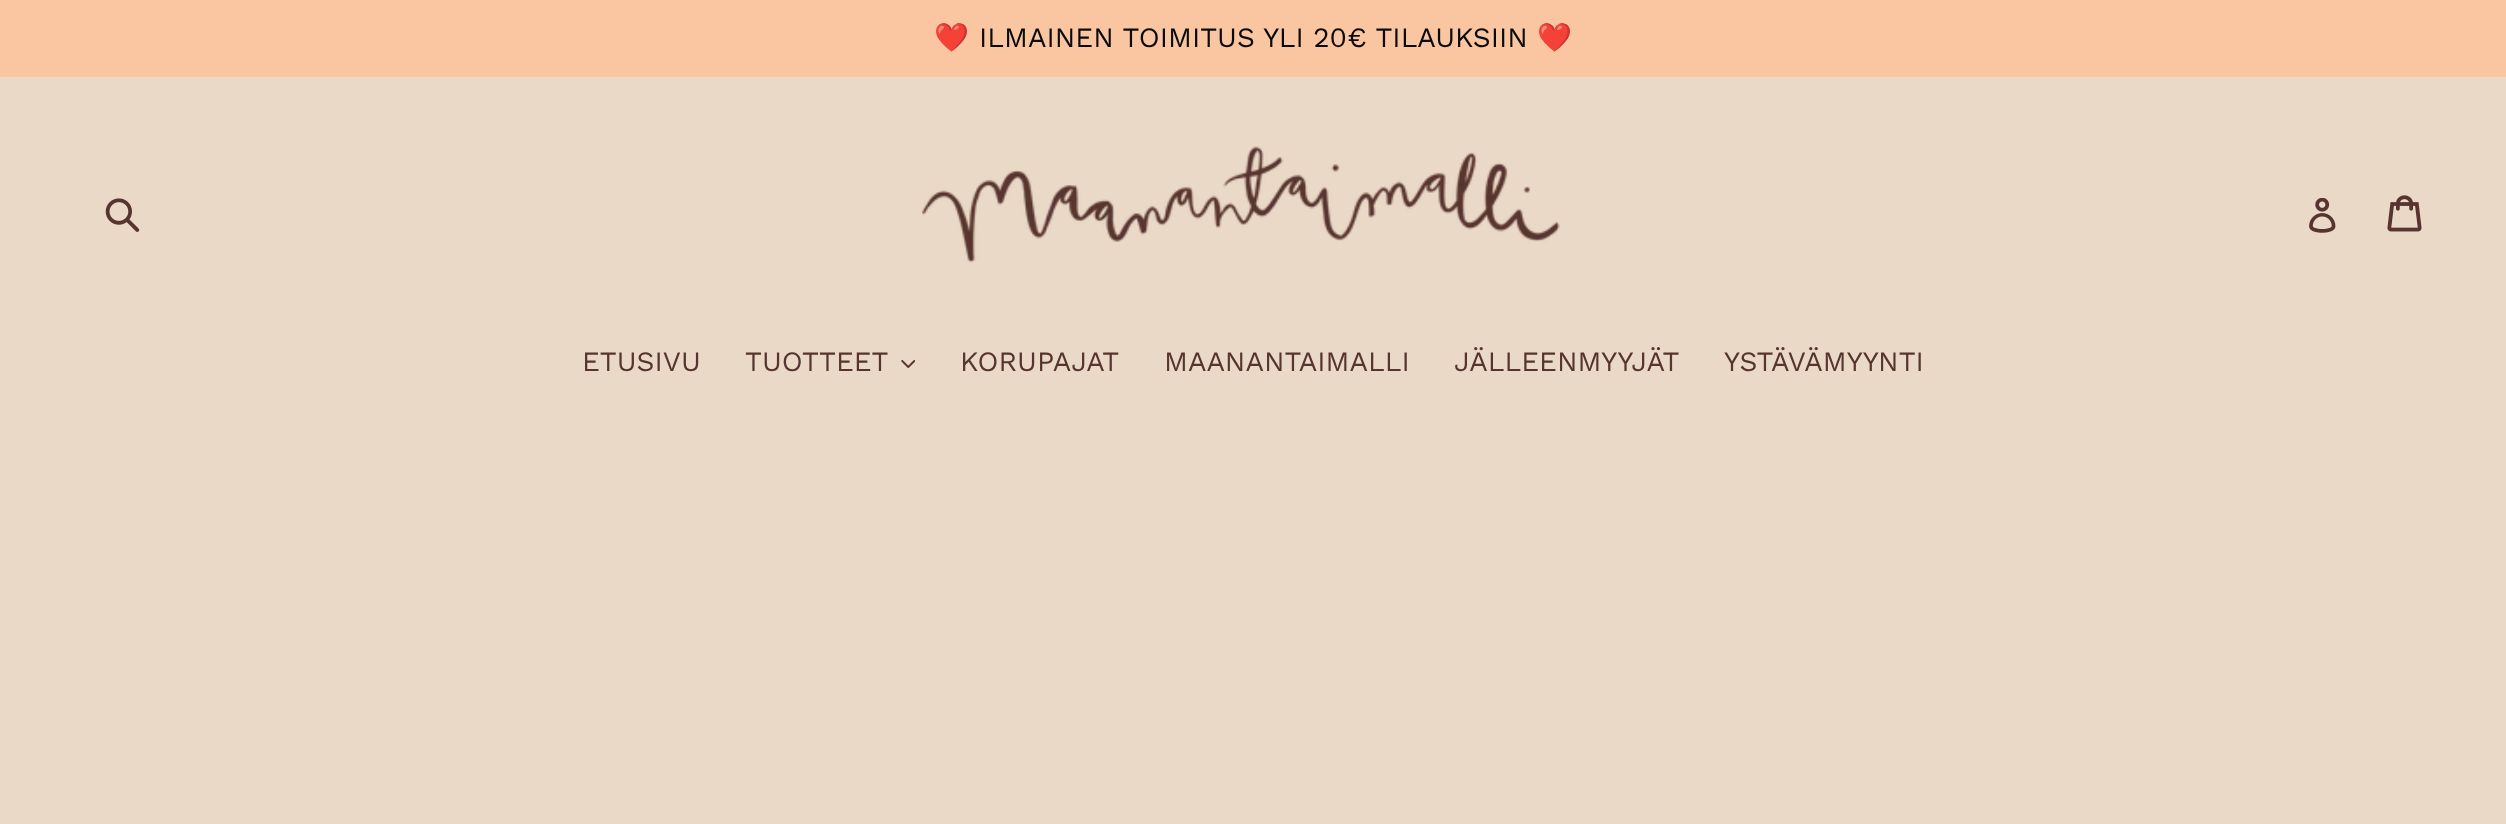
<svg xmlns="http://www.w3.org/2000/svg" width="2506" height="824">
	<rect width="100%" height="100%" fill="#EAD9C7" />
	<rect x="0" y="0" width="2506" height="77" fill="#FAC6A2" />
	<text x="934" y="47" font-family="Noto Color Emoji" font-size="28" fill="#0A0A0A">❤️</text>
	<text x="979" y="47" font-family="Work Sans" font-size="28" fill="#0A0A0A">ILMAINEN TOIMITUS YLI 20€ TILAUKSIIN</text>
	<text x="1537" y="47" font-family="Noto Color Emoji" font-size="28" fill="#0A0A0A">❤️</text>
	<image x="105" y="198" width="35" height="34" href="assets/img1.png" />
	<image x="921" y="146" width="639" height="117" href="assets/img2.png" />
	<image x="2309" y="198" width="27" height="35" href="assets/img3.png" />
	<image x="2387" y="195" width="35" height="37" href="assets/img4.png" />
	<g font-family="Work Sans" font-size="28" fill="#57342F">
		<text x="582" y="371">ETUSIVU</text>
		<text x="745" y="371">TUOTTEET</text>
	</g>
	<image x="901" y="360" width="14" height="8" href="assets/img5.png" />
	<g font-family="Work Sans" font-size="28" fill="#57342F">
		<text x="960" y="371">KORUPAJAT</text>
		<text x="1164" y="371">MAANANTAIMALLI</text>
		<text x="1454" y="371">JÄLLEENMYYJÄT</text>
		<text x="1724" y="371">YSTÄVÄMYYNTI</text>
	</g>
</svg>
